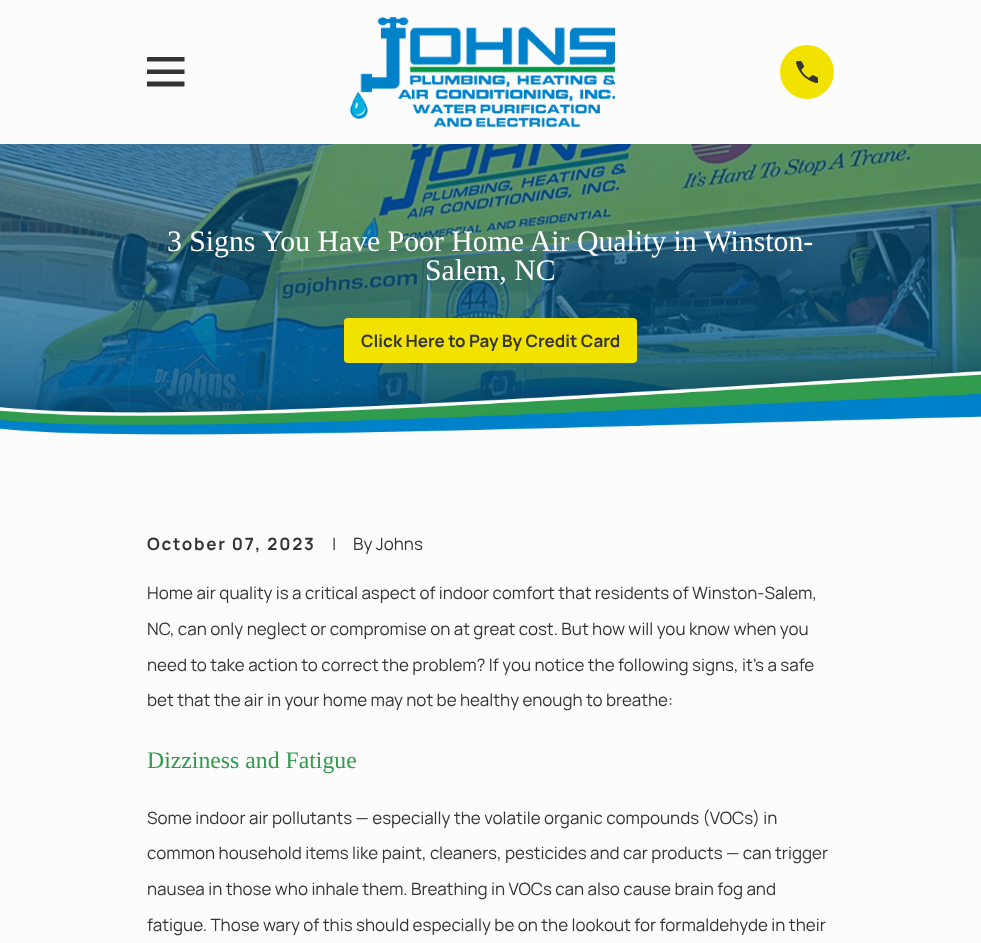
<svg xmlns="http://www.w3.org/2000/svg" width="981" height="943">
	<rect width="100%" height="100%" fill="#FCFCFC" />
	<path d="M147 57V61.5H184.5V57ZM147 69.5V74H184.5V69.5ZM147 81.5V86.5H184.5V81.5Z" fill="#343434" />
	<image x="350" y="17" width="265" height="110" href="assets/img1.png" />
	<circle cx="807" cy="72" r="27" fill="#F2E200" />
	<image x="796" y="61" width="22" height="22" href="assets/img2.png" />
	<image x="0" y="144" width="981" height="301" href="assets/img3.png" />
	<g font-family="Liberation Serif" font-size="29.75" fill="#FFFFFF">
		<text x="167" y="251">3 Signs You Have Poor Home Air Quality in Winston-</text>
		<text x="425" y="280">Salem, NC</text>
	</g>
	<rect x="344" y="318" width="293" height="45" rx="4" fill="#F2E200" />
	<text x="361" y="347" font-family="Manrope" font-size="17" font-weight="700" fill="#343434">Click Here to Pay By Credit Card</text>
	<text x="147" y="550" font-family="Manrope" font-size="17" font-weight="700" letter-spacing="1.75" fill="#343434">October 07, 2023</text>
	<g font-family="Manrope" font-size="17" fill="#343434">
		<text x="332" y="550">|</text>
		<text x="353" y="550">By Johns</text>
		<text x="147" y="599">Home air quality is a critical aspect of indoor comfort that residents of Winston-Salem,</text>
		<text x="147" y="635">NC, can only neglect or compromise on at great cost. But how will you know when you</text>
		<text x="147" y="671">need to take action to correct the problem? If you notice the following signs, it’s a safe</text>
		<text x="147" y="706">bet that the air in your home may not be healthy enough to breathe:</text>
	</g>
	<text x="147" y="768" font-family="Liberation Serif" font-size="23.75" fill="#319B4E">Dizziness and Fatigue</text>
	<g font-family="Manrope" font-size="17" fill="#343434">
		<text x="147" y="824">Some indoor air pollutants — especially the volatile organic compounds (VOCs) in</text>
		<text x="147" y="859">common household items like paint, cleaners, pesticides and car products — can trigger</text>
		<text x="147" y="895">nausea in those who inhale them. Breathing in VOCs can also cause brain fog and</text>
		<text x="147" y="931">fatigue. Those wary of this should especially be on the lookout for formaldehyde in their</text>
	</g>
</svg>
